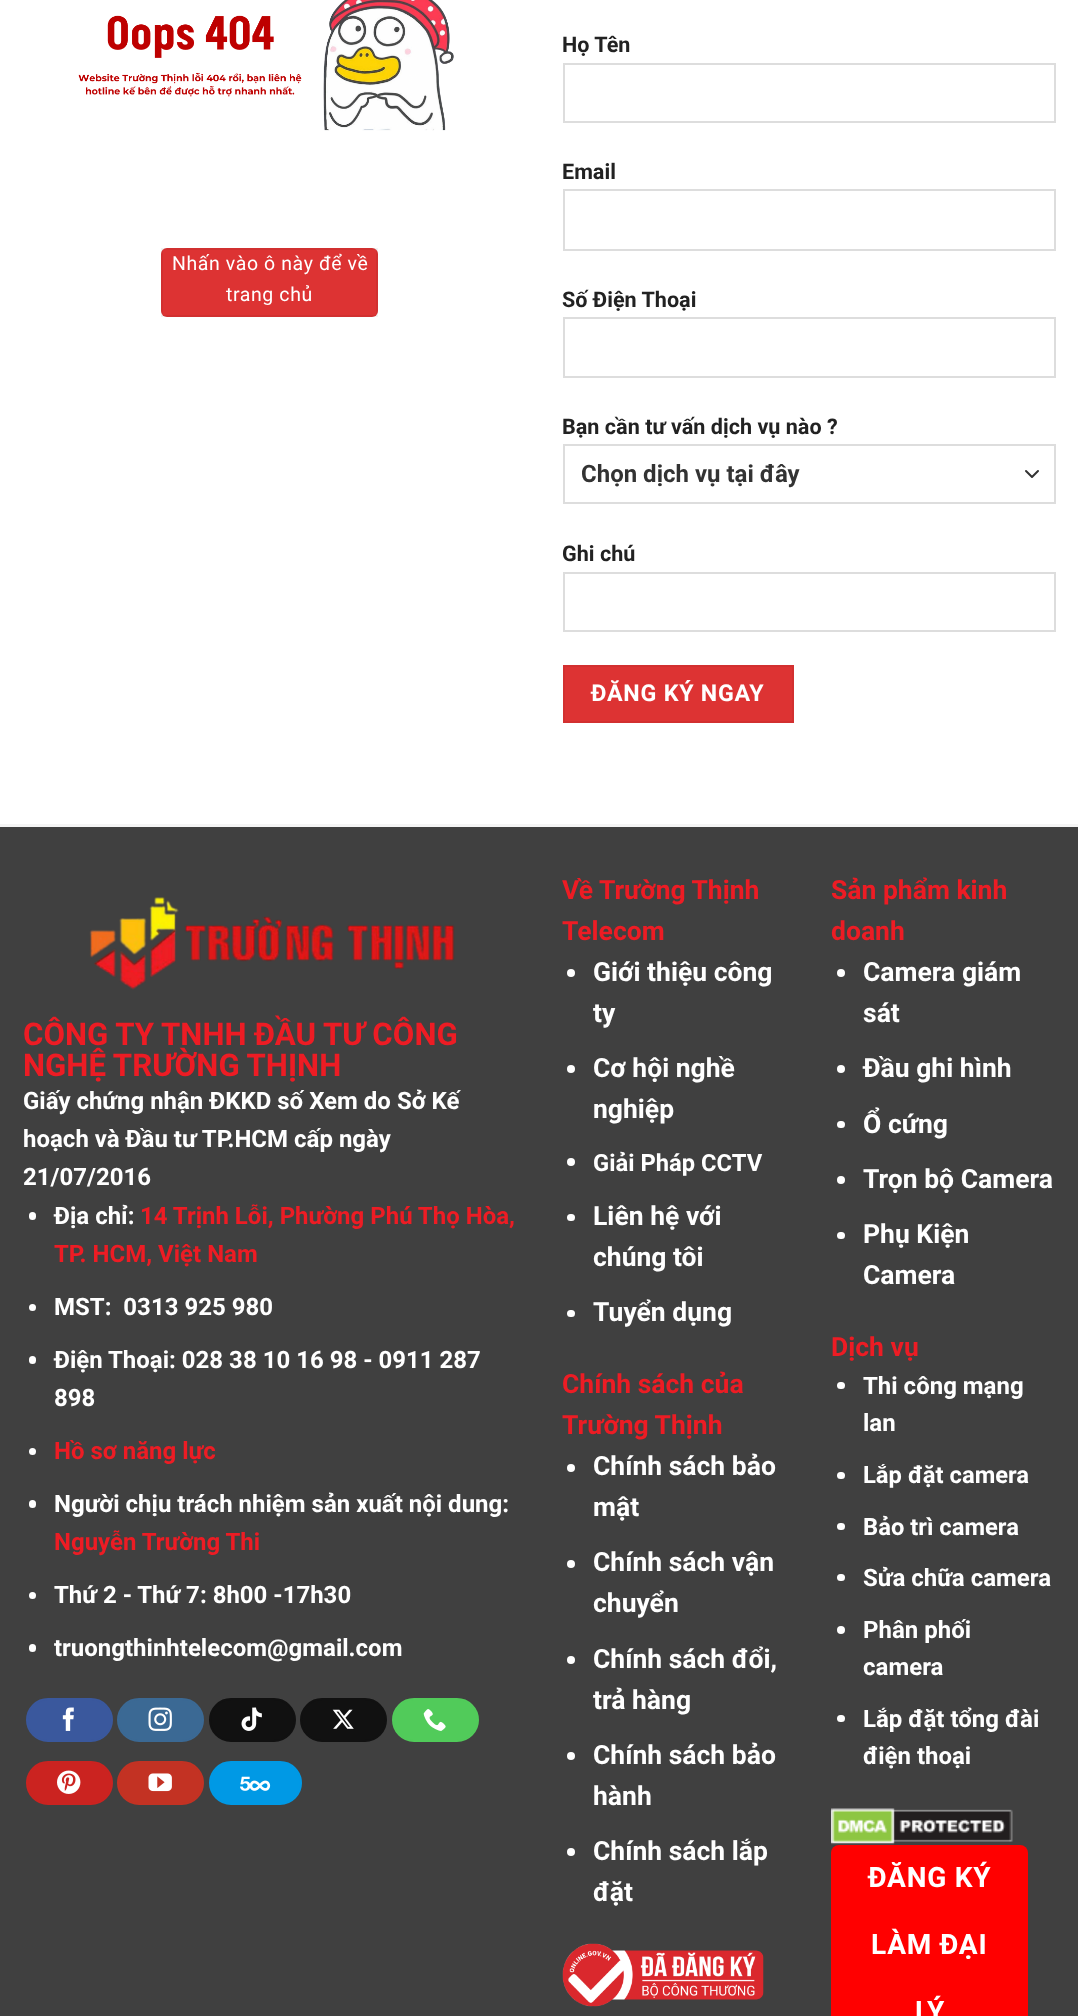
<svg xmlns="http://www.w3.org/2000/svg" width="1078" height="2016">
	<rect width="100%" height="100%" fill="#FFFFFF" />
	<image x="78" y="0" width="376" height="131" href="assets/img1.png" />
	<rect x="161" y="248" width="217" height="69" rx="6" fill="#DD3333" />
	<rect x="162" y="249" width="215" height="67" fill="none" stroke="#000000" stroke-opacity="0.05" stroke-width="2" />
	<g font-family="Roboto" font-size="19.5" letter-spacing="0.6" fill="#FFFFFF">
		<text x="172" y="270">Nhấn vào ô này để về</text>
		<text x="226" y="301">trang chủ</text>
	</g>
	<text x="562" y="52" font-family="Roboto" font-size="21.6" font-weight="700" fill="#222222">Họ Tên</text>
	<rect x="564" y="64" width="491" height="58" fill="none" stroke="#DDDDDD" stroke-width="2" />
	<text x="562" y="179" font-family="Roboto" font-size="21.6" font-weight="700" fill="#222222">Email</text>
	<rect x="564" y="190" width="491" height="60" fill="none" stroke="#DDDDDD" stroke-width="2" />
	<text x="562" y="307" font-family="Roboto" font-size="21.6" font-weight="700" fill="#222222">Số Điện Thoại</text>
	<rect x="564" y="318" width="491" height="59" fill="none" stroke="#DDDDDD" stroke-width="2" />
	<text x="562" y="434" font-family="Roboto" font-size="21.6" font-weight="700" fill="#222222">Bạn cần tư vấn dịch vụ nào ?</text>
	<path d="M1026 471L1032 477L1038 471" fill="none" stroke="#333333" stroke-width="2" stroke-linecap="round" stroke-linejoin="round" />
	<rect x="564" y="445" width="491" height="58" fill="none" stroke="#DDDDDD" stroke-width="2" />
	<text x="581" y="482" font-family="Roboto" font-size="24" font-weight="700" fill="#333333">Chọn dịch vụ tại đây</text>
	<text x="562" y="561" font-family="Roboto" font-size="21.6" font-weight="700" fill="#222222">Ghi chú</text>
	<rect x="564" y="573" width="491" height="58" fill="none" stroke="#DDDDDD" stroke-width="2" />
	<rect x="564" y="666" width="229" height="56" fill="#DD3333" stroke="#D23030" stroke-width="2" />
	<text x="591" y="701" font-family="Roboto" font-size="23.25" font-weight="700" letter-spacing="0.75" fill="#FFFFFF">ĐĂNG KÝ NGAY</text>
	<rect x="0" y="824" width="1078" height="3" fill="#F5F5F5" />
	<rect x="0" y="827" width="1078" height="1189" fill="#404040" />
	<image x="89" y="897" width="366" height="93" href="assets/img2.png" />
	<g font-family="Roboto" font-size="31.25" font-weight="700" fill="#ED1C24">
		<text x="23" y="1045">CÔNG TY TNHH ĐẦU TƯ CÔNG</text>
		<text x="23" y="1076">NGHỆ TRƯỜNG THỊNH</text>
	</g>
	<g font-family="Roboto" font-size="24" font-weight="700" fill="#FFFFFF">
		<text x="23" y="1109">Giấy chứng nhận ĐKKD số Xem do Sở Kế</text>
		<text x="23" y="1147">hoạch và Đầu tư TP.HCM cấp ngày</text>
		<text x="23" y="1185">21/07/2016</text>
	</g>
	<rect x="29" y="1212" width="7" height="8" rx="3.5" fill="#FFFFFF" />
	<text x="54" y="1224" font-family="Roboto" font-size="24" font-weight="700" fill="#FFFFFF">Địa chỉ:</text>
	<g font-family="Roboto" font-size="24" font-weight="700" fill="#ED1C24">
		<text x="140" y="1224">14 Trịnh Lỗi, Phường Phú Thọ Hòa,</text>
		<text x="54" y="1262">TP. HCM, Việt Nam</text>
	</g>
	<circle cx="32.5" cy="1307.5" r="3.5" fill="#FFFFFF" />
	<text x="54" y="1315" font-family="Roboto" font-size="24" font-weight="700" fill="#FFFFFF" xml:space="preserve">MST:  0313 925 980</text>
	<rect x="29" y="1356" width="7" height="8" rx="3.5" fill="#FFFFFF" />
	<g font-family="Roboto" font-size="24" font-weight="700" fill="#FFFFFF">
		<text x="54" y="1368">Điện Thoại: 028 38 10 16 98 - 0911 287</text>
		<text x="54" y="1406">898</text>
	</g>
	<circle cx="32.5" cy="1451.5" r="3.5" fill="#FFFFFF" />
	<text x="54" y="1459" font-family="Roboto" font-size="24" font-weight="700" fill="#ED1C24">Hồ sơ năng lực</text>
	<rect x="29" y="1500" width="7" height="8" rx="3.5" fill="#FFFFFF" />
	<text x="54" y="1512" font-family="Roboto" font-size="24" font-weight="700" fill="#FFFFFF">Người chịu trách nhiệm sản xuất nội dung:</text>
	<text x="54" y="1550" font-family="Roboto" font-size="24" font-weight="700" fill="#ED1C24">Nguyễn Trường Thi</text>
	<circle cx="32.5" cy="1595.5" r="3.5" fill="#FFFFFF" />
	<text x="54" y="1603" font-family="Roboto" font-size="24" font-weight="700" fill="#FFFFFF">Thứ 2 - Thứ 7: 8h00 -17h30</text>
	<rect x="29" y="1644" width="7" height="8" rx="3.5" fill="#FFFFFF" />
	<text x="54" y="1656" font-family="Roboto" font-size="24" font-weight="700" fill="#FFFFFF">truongthinhtelecom@gmail.com</text>
	<rect x="27" y="1699" width="85" height="42" rx="21" fill="#3A589D" stroke="#3A589D" stroke-width="2" />
	<image x="62" y="1707" width="12" height="24" href="assets/img3.png" />
	<rect x="118" y="1699" width="85" height="42" rx="21" fill="#3B6994" stroke="#3B6994" stroke-width="2" />
	<image x="148" y="1707" width="24" height="24" href="assets/img4.png" />
	<rect x="210" y="1699" width="85" height="42" rx="21" fill="#111111" stroke="#111111" stroke-width="2" />
	<image x="241" y="1707" width="21" height="24" href="assets/img5.png" />
	<rect x="301" y="1699" width="85" height="42" rx="21" fill="#111111" stroke="#111111" stroke-width="2" />
	<image x="332" y="1709" width="22" height="20" href="assets/img6.png" />
	<rect x="393" y="1699" width="85" height="42" rx="21" fill="#51CB5A" stroke="#51CB5A" stroke-width="2" />
	<image x="423" y="1709" width="23" height="22" href="assets/img7.png" />
	<rect x="27" y="1762" width="85" height="42" rx="21" fill="#CB2320" stroke="#CB2320" stroke-width="2" />
	<image x="57" y="1770" width="24" height="24" href="assets/img8.png" />
	<rect x="118" y="1762" width="85" height="42" rx="21" fill="#C33223" stroke="#C33223" stroke-width="2" />
	<image x="148" y="1773" width="24" height="19" href="assets/img9.png" />
	<rect x="210" y="1762" width="91" height="42" rx="21" fill="#0099E5" stroke="#0099E5" stroke-width="2" />
	<image x="240" y="1776" width="31" height="15" href="assets/img10.png" />
	<g font-family="Roboto" font-size="26.5" font-weight="700" fill="#ED1C24">
		<text x="562" y="899">Về Trường Thịnh</text>
		<text x="562" y="940">Telecom</text>
	</g>
	<circle cx="571" cy="973" r="4" fill="#FFFFFF" />
	<g font-family="Roboto" font-size="26.5" font-weight="700" fill="#FFFFFF">
		<text x="593" y="981">Giới thiệu công</text>
		<text x="593" y="1022">ty</text>
	</g>
	<circle cx="571" cy="1069" r="4" fill="#FFFFFF" />
	<g font-family="Roboto" font-size="26.5" font-weight="700" fill="#FFFFFF">
		<text x="593" y="1077">Cơ hội nghề</text>
		<text x="593" y="1118">nghiệp</text>
	</g>
	<circle cx="571" cy="1162" r="4" fill="#FFFFFF" />
	<text x="593" y="1171" font-family="Roboto" font-size="23.75" font-weight="700" fill="#FFFFFF">Giải Pháp CCTV</text>
	<rect x="567" y="1214" width="8" height="7" rx="3.5" fill="#FFFFFF" />
	<g font-family="Roboto" font-size="26.5" font-weight="700" fill="#FFFFFF">
		<text x="593" y="1225">Liên hệ với</text>
		<text x="593" y="1266">chúng tôi</text>
	</g>
	<rect x="567" y="1310" width="8" height="7" rx="3.5" fill="#FFFFFF" />
	<text x="593" y="1321" font-family="Roboto" font-size="26.5" font-weight="700" fill="#FFFFFF">Tuyển dụng</text>
	<g font-family="Roboto" font-size="26.5" font-weight="700" fill="#ED1C24">
		<text x="562" y="1393">Chính sách của</text>
		<text x="562" y="1434">Trường Thịnh</text>
	</g>
	<circle cx="571" cy="1468" r="4" fill="#FFFFFF" />
	<g font-family="Roboto" font-size="26.5" font-weight="700" fill="#FFFFFF">
		<text x="593" y="1475">Chính sách bảo</text>
		<text x="593" y="1516">mật</text>
	</g>
	<circle cx="571" cy="1564" r="4" fill="#FFFFFF" />
	<g font-family="Roboto" font-size="26.5" font-weight="700" fill="#FFFFFF">
		<text x="593" y="1571">Chính sách vận</text>
		<text x="593" y="1612">chuyển</text>
	</g>
	<circle cx="571" cy="1660" r="4" fill="#FFFFFF" />
	<g font-family="Roboto" font-size="26.5" font-weight="700" fill="#FFFFFF">
		<text x="593" y="1668">Chính sách đổi,</text>
		<text x="593" y="1709">trả hàng</text>
	</g>
	<circle cx="571" cy="1756" r="4" fill="#FFFFFF" />
	<g font-family="Roboto" font-size="26.5" font-weight="700" fill="#FFFFFF">
		<text x="593" y="1764">Chính sách bảo</text>
		<text x="593" y="1805">hành</text>
	</g>
	<circle cx="571" cy="1852" r="4" fill="#FFFFFF" />
	<g font-family="Roboto" font-size="26.5" font-weight="700" fill="#FFFFFF">
		<text x="593" y="1860">Chính sách lắp</text>
		<text x="593" y="1901">đặt</text>
	</g>
	<image x="562" y="1943" width="202" height="64" href="assets/img11.png" />
	<g font-family="Roboto" font-size="26.5" font-weight="700" fill="#ED1C24">
		<text x="831" y="899">Sản phẩm kinh</text>
		<text x="831" y="940">doanh</text>
	</g>
	<circle cx="841" cy="973" r="4" fill="#FFFFFF" />
	<g font-family="Roboto" font-size="26.5" font-weight="700" fill="#FFFFFF">
		<text x="863" y="981">Camera giám</text>
		<text x="863" y="1022">sát</text>
	</g>
	<circle cx="841" cy="1069" r="4" fill="#FFFFFF" />
	<text x="863" y="1077" font-family="Roboto" font-size="26.5" font-weight="700" fill="#FFFFFF">Đầu ghi hình</text>
	<rect x="837" y="1121" width="8" height="7" rx="3.5" fill="#FFFFFF" />
	<text x="863" y="1133" font-family="Roboto" font-size="26.5" font-weight="700" fill="#FFFFFF">Ổ cứng</text>
	<circle cx="841" cy="1180" r="4" fill="#FFFFFF" />
	<text x="863" y="1188" font-family="Roboto" font-size="26.5" font-weight="700" fill="#FFFFFF">Trọn bộ Camera</text>
	<rect x="837" y="1232" width="8" height="7" rx="3.5" fill="#FFFFFF" />
	<g font-family="Roboto" font-size="26.5" font-weight="700" fill="#FFFFFF">
		<text x="863" y="1243">Phụ Kiện</text>
		<text x="863" y="1284">Camera</text>
	</g>
	<text x="831" y="1356" font-family="Roboto" font-size="26.5" font-weight="700" fill="#ED1C24">Dịch vụ</text>
	<rect x="837" y="1382" width="8" height="7" rx="3.5" fill="#FFFFFF" />
	<g font-family="Roboto" font-size="24" font-weight="700" fill="#FFFFFF">
		<text x="863" y="1394">Thi công mạng</text>
		<text x="863" y="1431">lan</text>
	</g>
	<rect x="837" y="1472" width="8" height="7" rx="3.5" fill="#FFFFFF" />
	<text x="863" y="1483" font-family="Roboto" font-size="23.75" font-weight="700" fill="#FFFFFF">Lắp đặt camera</text>
	<rect x="837" y="1523" width="8" height="7" rx="3.5" fill="#FFFFFF" />
	<text x="863" y="1535" font-family="Roboto" font-size="23.75" font-weight="700" fill="#FFFFFF">Bảo trì camera</text>
	<rect x="837" y="1574" width="8" height="7" rx="3.5" fill="#FFFFFF" />
	<text x="863" y="1586" font-family="Roboto" font-size="24" font-weight="700" fill="#FFFFFF">Sửa chữa camera</text>
	<circle cx="841" cy="1630" r="4" fill="#FFFFFF" />
	<g font-family="Roboto" font-size="24" font-weight="700" fill="#FFFFFF">
		<text x="863" y="1638">Phân phối</text>
		<text x="863" y="1675">camera</text>
	</g>
	<rect x="837" y="1715" width="8" height="7" rx="3.5" fill="#FFFFFF" />
	<g font-family="Roboto" font-size="24" font-weight="700" fill="#FFFFFF">
		<text x="863" y="1727">Lắp đặt tổng đài</text>
		<text x="863" y="1764">điện thoại</text>
	</g>
	<image x="831" y="1808" width="182" height="37" href="assets/img12.png" />
	<rect x="831" y="1845" width="197" height="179" rx="8" fill="#FF0000" />
	<g font-family="Roboto" font-size="28" font-weight="700" letter-spacing="0.75" fill="#FFFFFF">
		<text x="868" y="1887">ĐĂNG KÝ</text>
		<text x="871" y="1954">LÀM ĐẠI</text>
		<text x="915" y="2021">LÝ</text>
	</g>
</svg>
